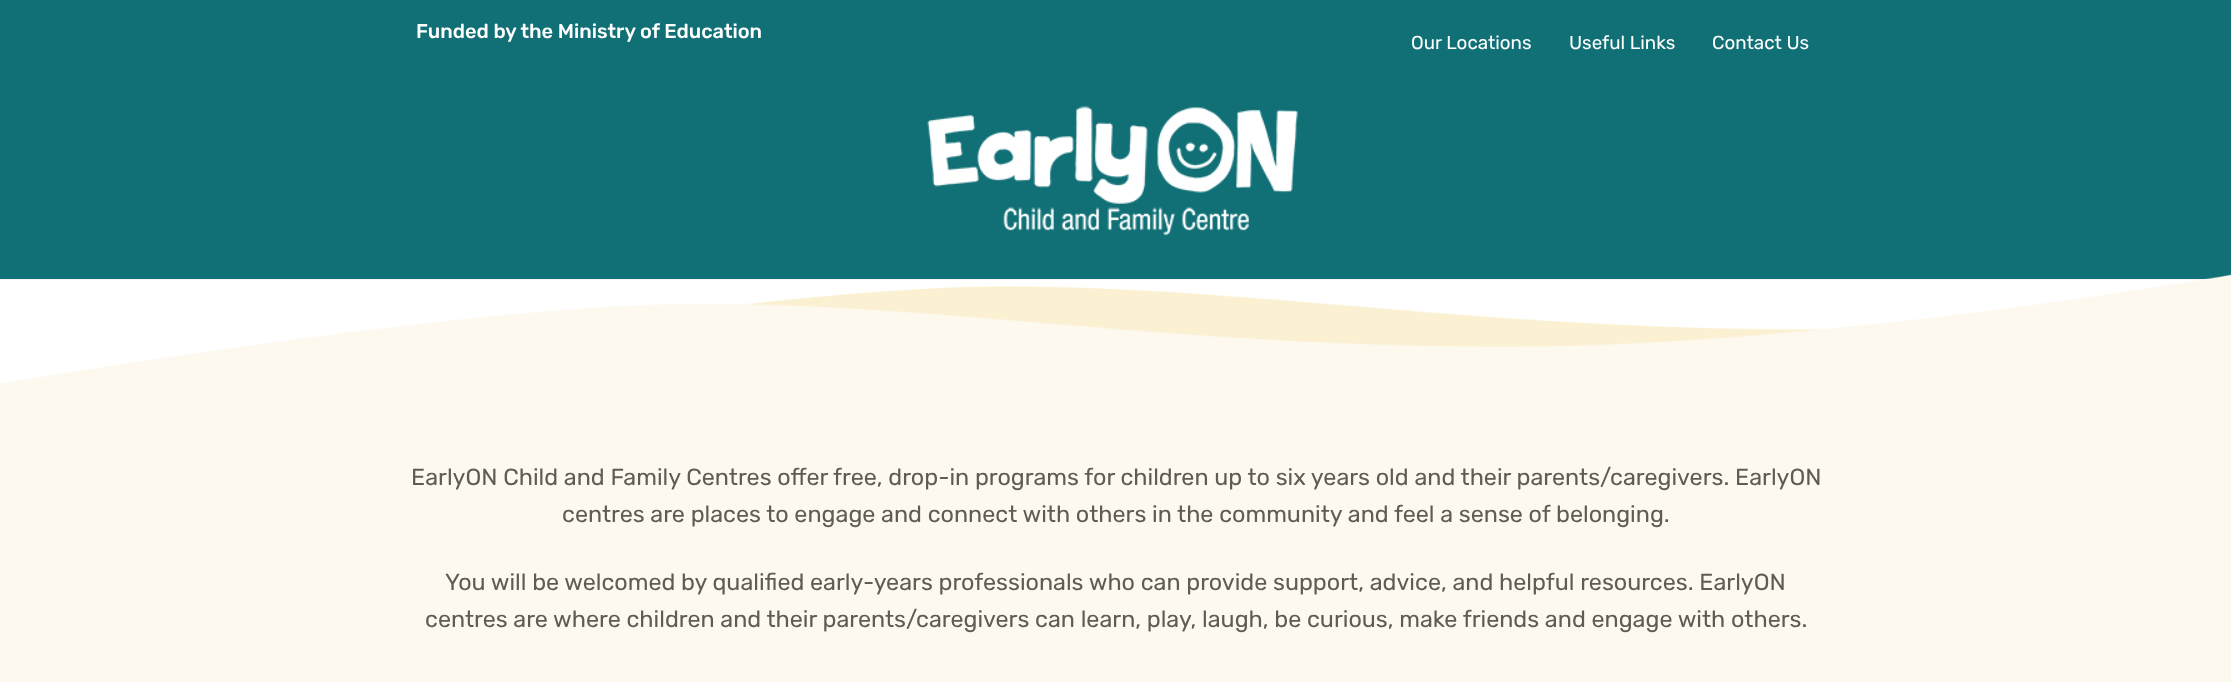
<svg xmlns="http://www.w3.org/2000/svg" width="2231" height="682">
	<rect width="100%" height="100%" fill="#FDF9EF" />
	<rect x="0" y="0" width="2231" height="279" fill="#117076" />
	<text x="416" y="38" font-family="Rubik" font-size="20" font-weight="500" fill="#FFFFFF">Funded by the Ministry of Education</text>
	<g font-family="Rubik" font-size="18.75" fill="#FFFFFF">
		<text x="1411" y="49">Our Locations</text>
		<text x="1569" y="49">Useful Links</text>
		<text x="1712" y="49">Contact Us</text>
	</g>
	<image x="927" y="106" width="371" height="130" href="assets/img1.png" />
	<rect x="0" y="280" width="2206" height="105" fill="#FFFFFF" />
	<rect x="0" y="279" width="2211" height="1" fill="#F4F4F4" />
	<image x="0" y="274" width="2231" height="111" href="assets/img2.png" />
	<g font-family="Rubik" font-size="23.33" fill="#5F5D51">
		<text x="411" y="485">EarlyON Child and Family Centres offer free, drop-in programs for children up to six years old and their parents/caregivers. EarlyON</text>
		<text x="562" y="522">centres are places to engage and connect with others in the community and feel a sense of belonging.</text>
		<text x="445" y="590">You will be welcomed by qualified early-years professionals who can provide support, advice, and helpful resources. EarlyON</text>
		<text x="425" y="627">centres are where children and their parents/caregivers can learn, play, laugh, be curious, make friends and engage with others.</text>
	</g>
</svg>
